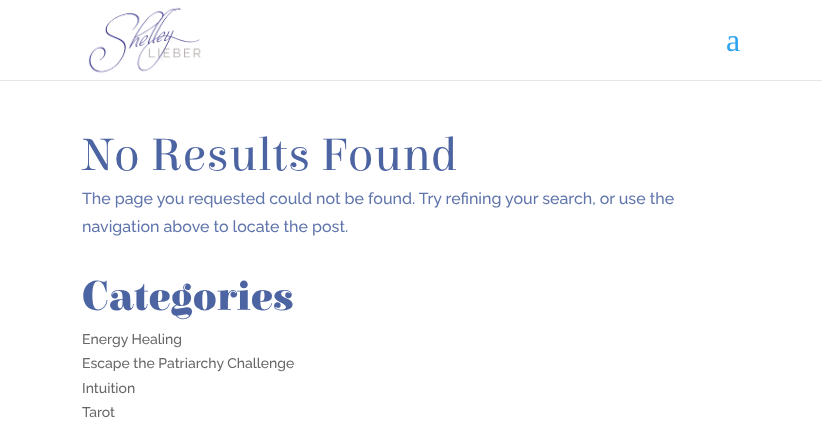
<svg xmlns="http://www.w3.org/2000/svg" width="822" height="424">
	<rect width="100%" height="100%" fill="#FFFFFF" />
	<rect x="0" y="80" width="822" height="1" fill="#E6E6E6" />
	<image x="88" y="7" width="113" height="66" href="assets/img1.png" />
	<text x="726" y="51" font-family="Liberation Serif" font-size="32" fill="#2EA3F2">a</text>
	<text x="82" y="170" font-family="Elsie" font-size="48" fill="#4C64A1">No Results Found</text>
	<g font-family="Raleway" font-size="16" font-weight="500" fill="#6075AB">
		<text x="82" y="204">The page you requested could not be found. Try refining your search, or use the</text>
		<text x="82" y="232">navigation above to locate the post.</text>
	</g>
	<text x="82" y="310" font-family="Elsie" font-size="41" font-weight="900" fill="#4C64A1">Categories</text>
	<g font-family="Raleway" font-size="14" font-weight="500" fill="#666666">
		<text x="82" y="344">Energy Healing</text>
		<text x="82" y="368">Escape the Patriarchy Challenge</text>
		<text x="82" y="393">Intuition</text>
		<text x="82" y="417">Tarot</text>
	</g>
</svg>
